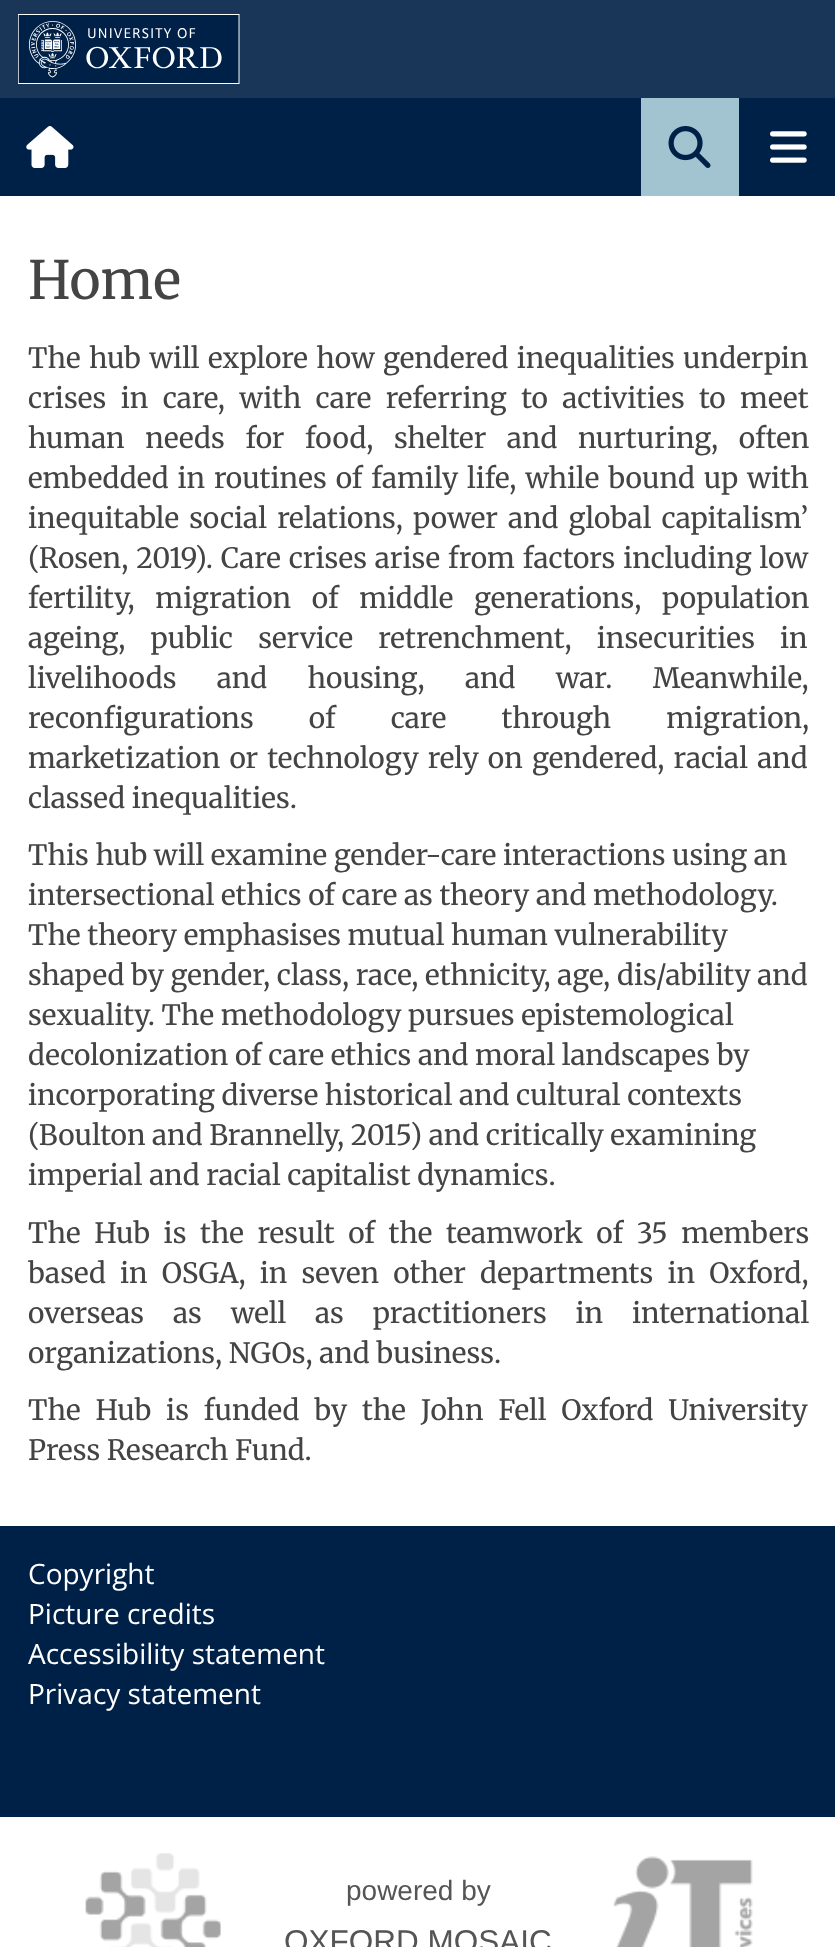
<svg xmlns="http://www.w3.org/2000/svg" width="835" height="1947">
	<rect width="100%" height="100%" fill="#FFFFFF" />
	<rect x="0" y="0" width="835" height="98" fill="#193658" />
	<image x="18" y="14" width="222" height="70" href="assets/img1.png" />
	<rect x="0" y="98" width="835" height="98" fill="#002147" />
	<image x="26" y="126" width="48" height="42" href="assets/img2.png" />
	<rect x="641" y="98" width="98" height="98" fill="#A1C4D0" />
	<image x="668" y="126" width="43" height="42" href="assets/img3.png" />
	<image x="770" y="131" width="37" height="32" href="assets/img4.png" />
	<text x="28" y="299" font-family="Merriweather" font-size="53" fill="#444444">Home</text>
	<g font-family="Merriweather" font-size="28" fill="#444444">
		<text x="28" y="368" word-spacing="1.75">The hub will explore how gendered inequalities underpin</text>
		<text x="28" y="408" word-spacing="7.75">crises in care, with care referring to activities to meet</text>
		<text x="28" y="448" word-spacing="14">human needs for food, shelter and nurturing, often</text>
		<text x="28" y="488" word-spacing="2.25">embedded in routines of family life, while bound up with</text>
		<text x="28" y="528" word-spacing="3.5">inequitable social relations, power and global capitalism’</text>
		<text x="28" y="568" word-spacing="1.25">(Rosen, 2019). Care crises arise from factors including low</text>
		<text x="28" y="608" word-spacing="14">fertility, migration of middle generations, population</text>
		<text x="28" y="648" word-spacing="18.5">ageing, public service retrenchment, insecurities in</text>
		<text x="28" y="688" word-spacing="33.75">livelihoods and housing, and war. Meanwhile,</text>
		<text x="28" y="728" word-spacing="48.5">reconfigurations of care through migration,</text>
		<text x="28" y="768" word-spacing="2.5">marketization or technology rely on gendered, racial and</text>
		<text x="28" y="808">classed inequalities.</text>
		<text x="28" y="865">This hub will examine gender-care interactions using an</text>
		<text x="28" y="905">intersectional ethics of care as theory and methodology.</text>
		<text x="28" y="945">The theory emphasises mutual human vulnerability</text>
		<text x="28" y="985">shaped by gender, class, race, ethnicity, age, dis/ability and</text>
		<text x="28" y="1025">sexuality. The methodology pursues epistemological</text>
		<text x="28" y="1065">decolonization of care ethics and moral landscapes by</text>
		<text x="28" y="1105">incorporating diverse historical and cultural contexts</text>
		<text x="28" y="1145">(Boulton and Brannelly, 2015) and critically examining</text>
		<text x="28" y="1185">imperial and racial capitalist dynamics.</text>
		<text x="28" y="1243" word-spacing="7">The Hub is the result of the teamwork of 35 members</text>
		<text x="28" y="1283" word-spacing="7.5">based in OSGA, in seven other departments in Oxford,</text>
		<text x="28" y="1323" word-spacing="22.25">overseas as well as practitioners in international</text>
		<text x="28" y="1363">organizations, NGOs, and business.</text>
		<text x="28" y="1420" word-spacing="8.25">The Hub is funded by the John Fell Oxford University</text>
		<text x="28" y="1460">Press Research Fund.</text>
	</g>
	<rect x="0" y="1526" width="835" height="291" fill="#002147" />
	<g font-family="Open Sans" font-size="28" fill="#FFFFFF">
		<text x="28" y="1584">Copyright</text>
		<text x="28" y="1624">Picture credits</text>
		<text x="28" y="1664">Accessibility statement</text>
		<text x="28" y="1704">Privacy statement</text>
	</g>
	<image x="85" y="1853" width="136" height="94" href="assets/img5.png" />
	<text x="346" y="1900" font-family="Liberation Sans" font-size="28" fill="#555555">powered by</text>
	<text x="284" y="1952" font-family="Liberation Sans" font-size="31.5" fill="#555555">OXFORD MOSAIC</text>
	<image x="613" y="1856" width="140" height="91" href="assets/img6.png" />
</svg>
